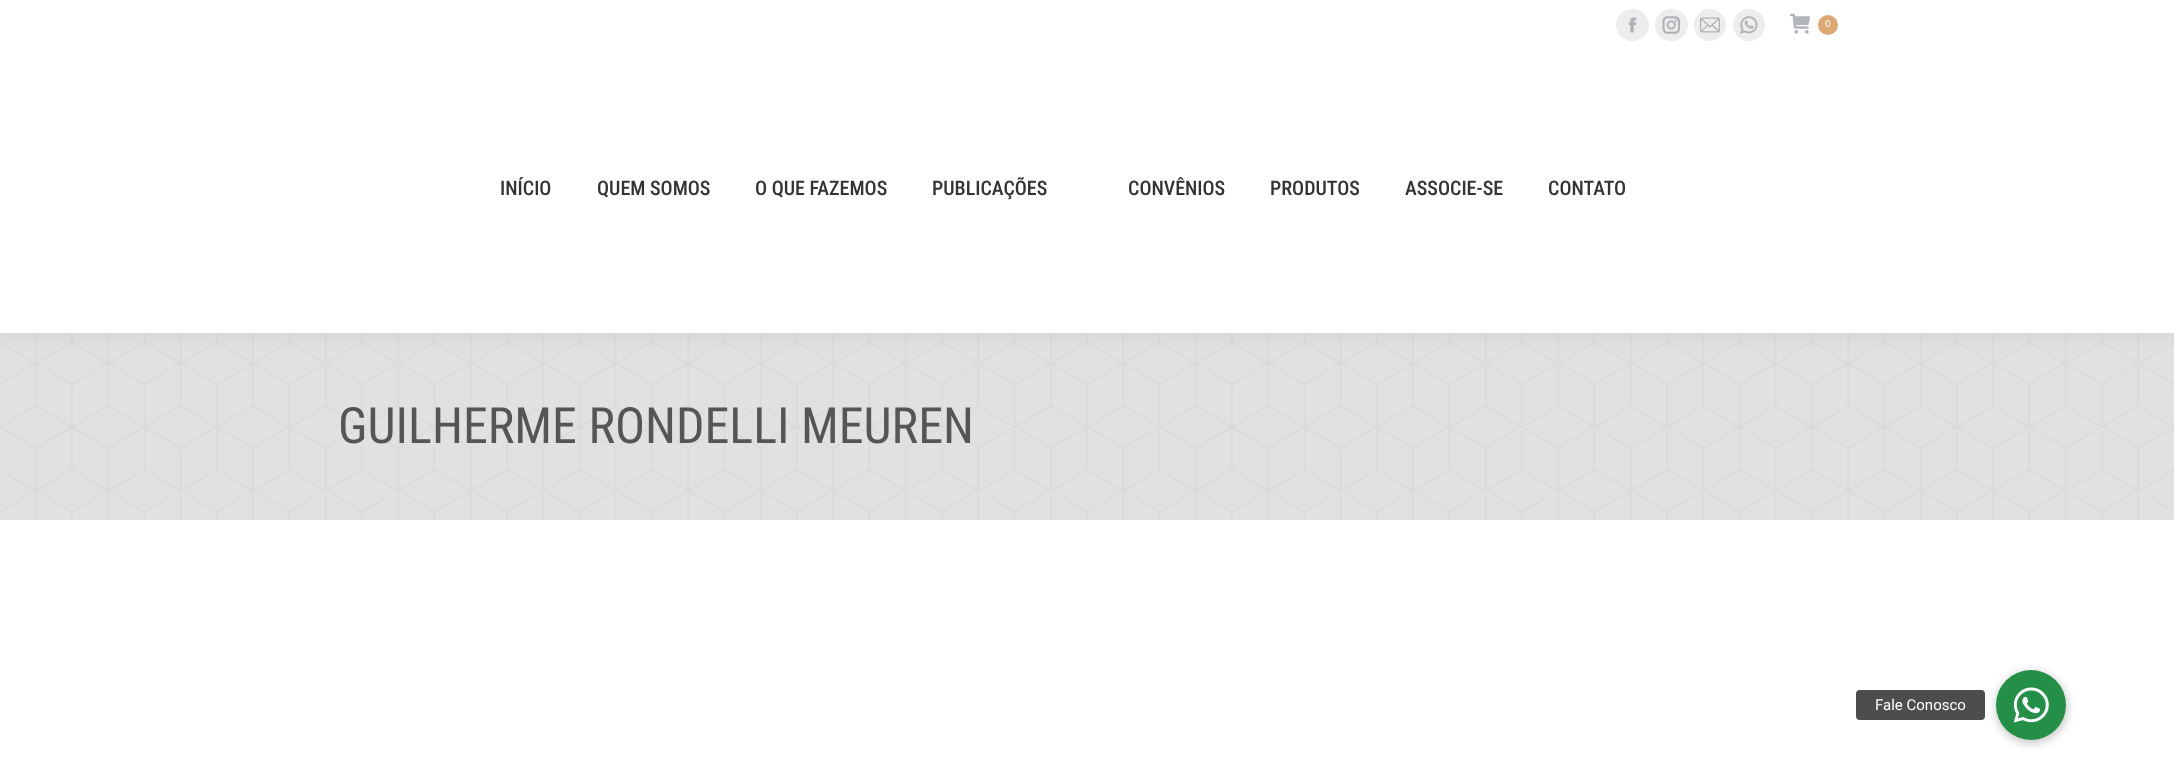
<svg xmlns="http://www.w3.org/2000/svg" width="2174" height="778">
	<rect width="100%" height="100%" fill="#FFFFFF" />
	<rect x="0" y="333" width="2174" height="187" fill="#E1E1E1" />
	<image x="0" y="333" width="2174" height="187" href="assets/img6.png" />
	<rect x="-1" y="-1" width="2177" height="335" fill="#000000" fill-opacity="0.07" filter="blur(9.5px)" />
	<rect x="0" y="0" width="2174" height="333" fill="#FFFFFF" />
	<rect x="1616" y="9" width="33" height="32" rx="16" fill="#EDEDED" />
	<image x="1628" y="17" width="9" height="16" href="assets/img1.png" />
	<rect x="1655" y="9" width="33" height="32" rx="16" fill="#EDEDED" />
	<image x="1662" y="16" width="18" height="18" href="assets/img2.png" />
	<circle cx="1710" cy="25" r="16" fill="#EDEDED" />
	<image x="1700" y="17" width="20" height="16" href="assets/img3.png" />
	<circle cx="1749" cy="25" r="16" fill="#EDEDED" />
	<image x="1740" y="16" width="18" height="18" href="assets/img4.png" />
	<image x="1790" y="13" width="20" height="21" href="assets/img5.png" />
	<circle cx="1828" cy="25" r="10" fill="#DEA873" />
	<text x="1825" y="27" font-family="Liberation Sans" font-size="10" fill="#FFFFFF">0</text>
	<g font-family="Roboto Condensed" font-size="20" font-weight="500" fill="#333333">
		<text x="500" y="195">INÍCIO</text>
		<text x="597" y="195">QUEM SOMOS</text>
		<text x="755" y="195">O QUE FAZEMOS</text>
		<text x="932" y="195">PUBLICAÇÕES</text>
		<text x="1128" y="195">CONVÊNIOS</text>
		<text x="1270" y="195">PRODUTOS</text>
		<text x="1405" y="195">ASSOCIE-SE</text>
		<text x="1548" y="195">CONTATO</text>
	</g>
	<text x="338" y="443" font-family="Roboto Condensed" font-size="50" fill="#555555">GUILHERME RONDELLI MEUREN</text>
	<rect x="1995" y="671" width="73" height="73" rx="36.5" fill="#000000" fill-opacity="0.2" filter="blur(4px)" />
	<circle cx="2031" cy="705" r="35" fill="#248F47" />
	<rect x="1856" y="690" width="129" height="30" rx="4" fill="#4E4C4C" />
	<text x="1875" y="710" font-family="Roboto" font-size="15" fill="#FFFFFF">Fale Conosco</text>
	<image x="2013" y="687" width="36" height="36" href="assets/img7.png" />
</svg>
